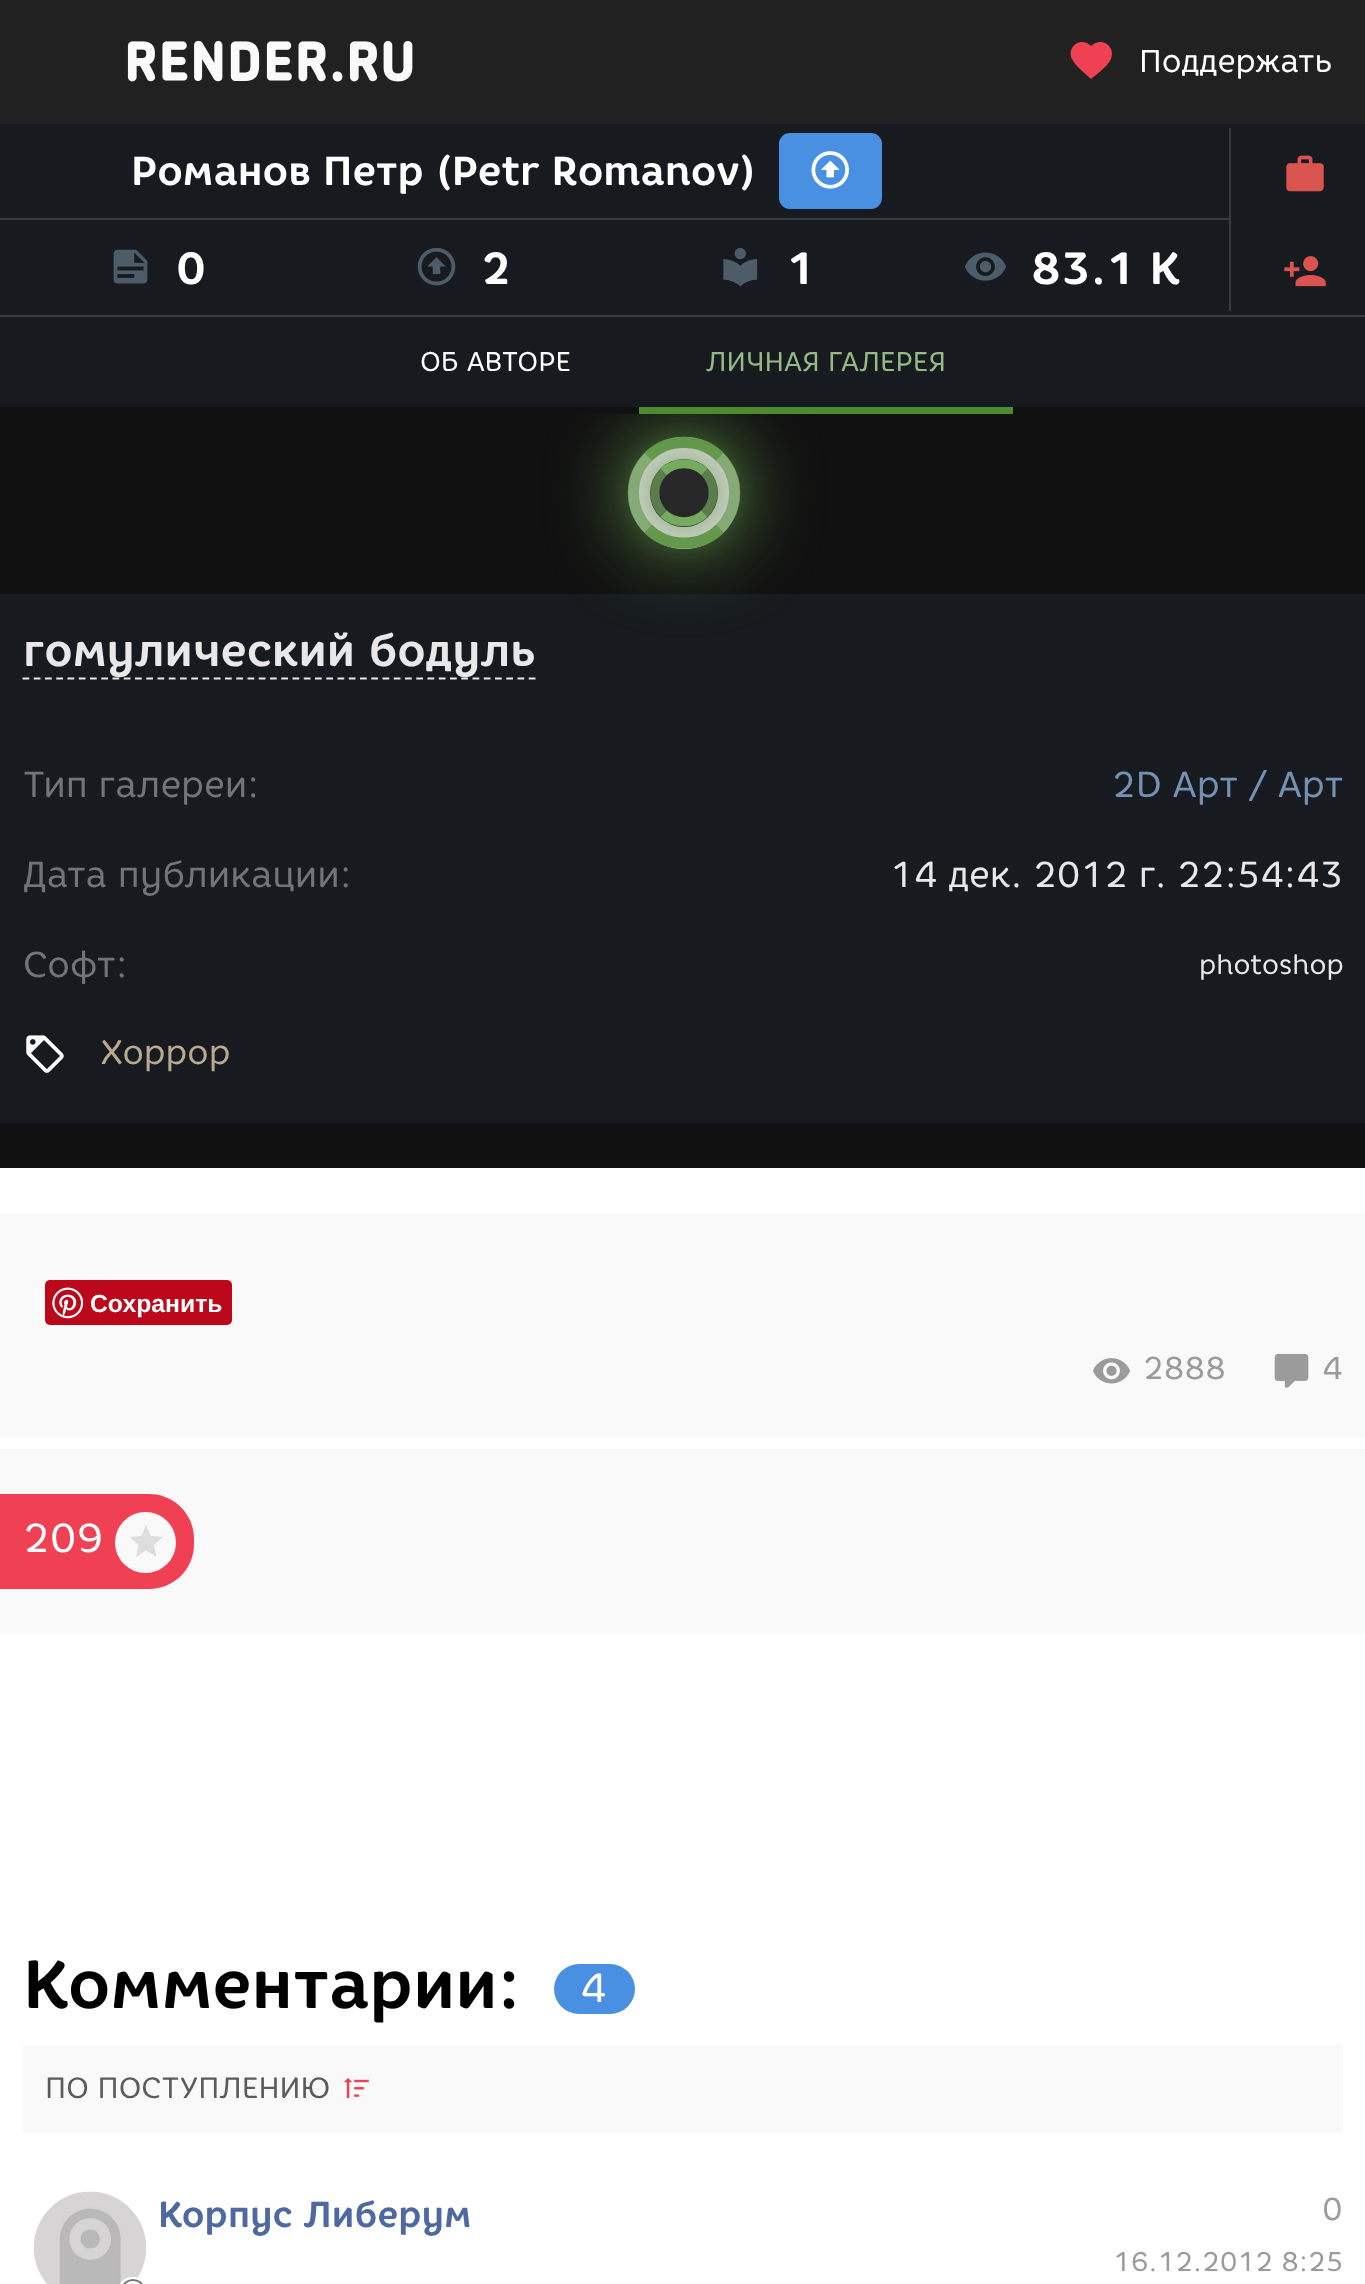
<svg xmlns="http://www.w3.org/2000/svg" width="1365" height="2284">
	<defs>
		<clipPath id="clip1"><rect x="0" y="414" width="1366" height="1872" /></clipPath>
		<clipPath id="clip2"><path d="M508 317H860V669H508ZM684 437C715 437 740 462 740 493C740 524 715 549 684 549C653 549 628 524 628 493C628 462 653 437 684 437Z" clip-rule="evenodd" /></clipPath>
		<clipPath id="clip3"><path d="M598 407H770V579H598ZM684 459C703 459 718 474 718 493C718 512 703 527 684 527C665 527 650 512 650 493C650 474 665 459 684 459Z" clip-rule="evenodd" /></clipPath>
	</defs>
	<rect width="100%" height="100%" fill="#111111" />
	<rect x="0" y="0" width="1365" height="124" fill="#212121" />
	<image x="127" y="40" width="286" height="42" href="assets/img1.png" />
	<path d="M1091 79C1085 73 1076 67 1072 59C1066 46 1082 36 1091 46C1101 36 1116 46 1111 59C1107 67 1098 73 1091 79Z" fill="#F04154" />
	<text x="1139" y="72" font-family="'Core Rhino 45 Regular'" font-size="31.5" fill="#FFFFFF">Поддержать</text>
	<rect x="0" y="124" width="1365" height="191" fill="#171B1F" />
	<text x="131" y="185" font-family="'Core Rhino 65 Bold'" font-size="40.5" font-weight="700" fill="#FFFFFF">Романов Петр (Petr Romanov)</text>
	<rect x="780" y="134" width="101" height="74" rx="10" fill="#4A90E2" stroke="#4A90E2" stroke-width="2" />
	<image x="811" y="151" width="38" height="38" href="assets/img2.png" />
	<rect x="1229" y="128" width="2" height="183" fill="#373B3E" />
	<image x="1286" y="155" width="38" height="37" href="assets/img3.png" />
	<image x="1284" y="256" width="42" height="31" href="assets/img4.png" />
	<rect x="0" y="218" width="1229" height="2" fill="#373B3E" />
	<image x="113" y="249" width="35" height="35" href="assets/img5.png" />
	<text x="176" y="284" font-family="'Core Rhino 65 Bold'" font-size="45" font-weight="700" fill="#FFFFFF">0</text>
	<image x="417" y="247" width="39" height="39" href="assets/img6.png" />
	<text x="481" y="284" font-family="'Core Rhino 65 Bold'" font-size="45" font-weight="700" fill="#FFFFFF">2</text>
	<image x="723" y="247" width="35" height="40" href="assets/img7.png" />
	<text x="786" y="284" font-family="'Core Rhino 65 Bold'" font-size="45" font-weight="700" fill="#FFFFFF">1</text>
	<image x="965" y="252" width="41" height="29" href="assets/img8.png" />
	<text x="1031" y="284" font-family="'Core Rhino 65 Bold'" font-size="45" font-weight="700" fill="#FFFFFF">83.1 K</text>
	<rect x="0" y="315" width="1365" height="2" fill="#373B3E" />
	<rect x="0" y="317" width="1365" height="90" fill="#171B1F" />
	<text x="420" y="371" font-family="'Core Rhino 45 Regular'" font-size="27" fill="#FFFFFF">ОБ АВТОРЕ</text>
	<rect x="639" y="407" width="374" height="7" fill="#4C8B30" />
	<text x="706" y="371" font-family="'Core Rhino 45 Regular'" font-size="27" fill="#95BA85">ЛИЧНАЯ ГАЛЕРЕЯ</text>
	<rect x="0" y="594" width="1365" height="529" fill="#171B1F" />
	<g clip-path="url(#clip1)">
		<g clip-path="url(#clip2)">
			<rect x="628" y="437" width="112" height="112" rx="56" fill="#6CA652" fill-opacity="0.9" filter="blur(39.5px)" />
		</g>
	</g>
	<circle cx="684" cy="493" r="56" fill="#E7E7E7" fill-opacity="0.9" />
	<path d="M648 457C667.5 437.5 700.5 437.5 720 457" fill="none" stroke="#63974C" stroke-width="11.2" />
	<path d="M720 457C739.5 476.5 739.5 509 720 528.5" fill="none" stroke="#63974C" stroke-opacity="0.65" stroke-width="11.2" />
	<path d="M720 528.5C700.5 548 667.5 548 648 528.5" fill="none" stroke="#63974C" stroke-width="11.2" />
	<path d="M648 528.5C628.5 509 628.5 476.5 648 457" fill="none" stroke="#63974C" stroke-opacity="0.65" stroke-width="11.2" />
	<g clip-path="url(#clip3)">
		<rect x="650" y="459" width="68" height="68" rx="34" fill="#6CA652" fill-opacity="0.9" filter="blur(17px)" />
	</g>
	<circle cx="684" cy="493" r="34" fill="#151515" fill-opacity="0.9" />
	<path d="M663.5 472C674.5 461 693.5 461 704.5 472" fill="none" stroke="#76AA5F" stroke-width="9" />
	<path d="M704.5 472C716 483.5 716 502 704.5 513.5" fill="none" stroke="#76AA5F" stroke-opacity="0.65" stroke-width="9" />
	<path d="M704.5 513.5C693.5 524.5 674.5 524.5 663.5 513.5" fill="none" stroke="#76AA5F" stroke-width="9" />
	<path d="M663.5 513.5C652 502 652 483.5 663.5 472" fill="none" stroke="#76AA5F" stroke-opacity="0.65" stroke-width="9" />
	<path d="M22.5 678.5H535.5" fill="none" stroke="#E8E8E9" stroke-width="2.2" stroke-dasharray="6.75 4.5" />
	<text x="23" y="666" font-family="'Core Rhino 65 Bold'" font-size="45" font-weight="700" fill="#E8E8E9">гомулический бодуль</text>
	<text x="23" y="797" font-family="'Core Rhino 45 Regular'" font-size="36" fill="#717479">Тип галереи:</text>
	<text x="1112" y="797" font-family="'Core Rhino 45 Regular'" font-size="36" fill="#7491B3">2D Арт / Арт</text>
	<text x="23" y="887" font-family="'Core Rhino 45 Regular'" font-size="36" fill="#717479">Дата публикации:</text>
	<text x="890" y="887" font-family="'Core Rhino 45 Regular'" font-size="36" fill="#E8E8E9">14 дек. 2012 г. 22:54:43</text>
	<text x="23" y="977" font-family="'Core Rhino 45 Regular'" font-size="36" fill="#717479">Софт:</text>
	<text x="1199" y="974" font-family="'Core Rhino 45 Regular'" font-size="27" fill="#E8E8E9">photoshop</text>
	<image x="26" y="1035" width="38" height="38" href="assets/img9.png" />
	<text x="100" y="1064" font-family="'Core Rhino 45 Regular'" font-size="34" fill="#B9A990">Хоррор</text>
	<rect x="0" y="1168" width="1365" height="1116" fill="#FFFFFF" />
	<rect x="0" y="1213" width="1365" height="225" fill="#F9F9F9" />
	<rect x="45" y="1280" width="187" height="45" rx="5" fill="#BD081C" />
	<image x="52" y="1287" width="31" height="32" href="assets/img10.png" />
	<text x="90" y="1312" font-family="Liberation Sans" font-size="24.75" font-weight="700" fill="#FFFFFF">Сохранить</text>
	<image x="1093" y="1358" width="37" height="26" href="assets/img11.png" />
	<text x="1143" y="1379" font-family="'Core Rhino 45 Regular'" font-size="31.5" fill="#9B9B9B">2888</text>
	<image x="1274" y="1353" width="35" height="35" href="assets/img12.png" />
	<text x="1322" y="1379" font-family="'Core Rhino 45 Regular'" font-size="31.5" fill="#9B9B9B">4</text>
	<rect x="0" y="1449" width="1365" height="185" fill="#F9F9F9" />
	<path d="M0 1494H149C174 1494 194 1514 194 1539V1544C194 1569 174 1589 149 1589H0Z" fill="#F04154" />
	<text x="23" y="1552" font-family="'Core Rhino 45 Regular'" font-size="40.5" fill="#FFFFFF">209</text>
	<circle cx="145.5" cy="1542.5" r="30.5" fill="#F9F9F9" />
	<path d="M146 1550.5L156.5 1557L154 1545L163 1537L151 1536L146 1525L141.5 1536L129.5 1537L138.5 1545L136 1557Z" fill="#DEDEDE" />
	<text x="23" y="2008" font-family="'Core Rhino 65 Bold'" font-size="67.5" font-weight="700" fill="#000000">Комментарии:</text>
	<rect x="554" y="1964" width="81" height="50" rx="25" fill="#4A90E2" />
	<text x="580" y="2002" font-family="'Core Rhino 45 Regular'" font-size="40.5" fill="#FFFFFF">4</text>
	<rect x="23" y="2045" width="1320" height="88" fill="#F9F9F9" />
	<text x="45" y="2098" font-family="'Core Rhino 45 Regular'" font-size="29.25" fill="#5B5B5B">ПО ПОСТУПЛЕНИЮ</text>
	<image x="344" y="2078" width="25" height="21" href="assets/img13.png" />
	<image x="34" y="2191" width="112" height="93" href="assets/img14.png" />
	<path d="M132.5 2277C140 2277 146 2283 146 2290.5V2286H119V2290.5C119 2283 125 2277 132.5 2277Z" fill="#FFFFFF" />
	<rect x="120" y="2278" width="25" height="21" rx="12.5" fill="none" stroke="#FFFFFF" stroke-width="2" />
	<rect x="123" y="2280" width="20" height="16" rx="10" fill="none" stroke="#777777" stroke-width="2" />
	<text x="1322" y="2220" font-family="'Core Rhino 45 Regular'" font-size="31.5" fill="#9B9B9B">0</text>
	<text x="158" y="2227" font-family="'Core Rhino 65 Bold'" font-size="36" font-weight="700" fill="#4E69A2">Корпус Либерум</text>
	<text x="1113" y="2271" font-family="'Core Rhino 45 Regular'" font-size="27" fill="#9B9B9B">16.12.2012 8:25</text>
</svg>
